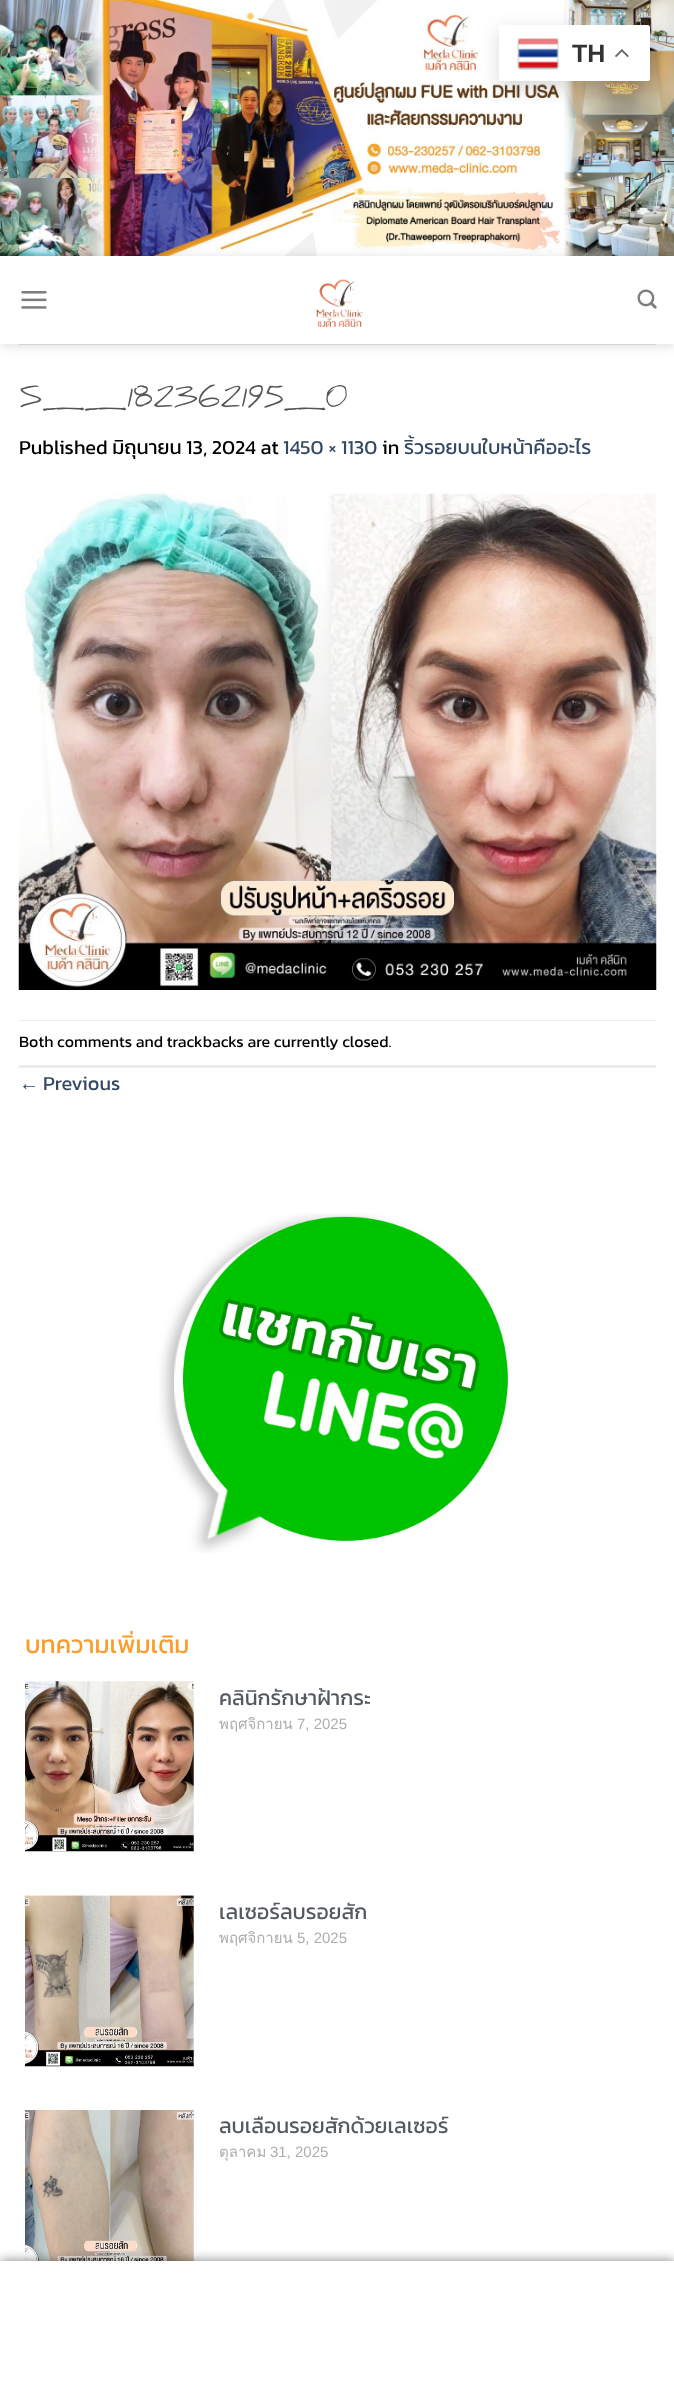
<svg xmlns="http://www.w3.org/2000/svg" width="674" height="2391">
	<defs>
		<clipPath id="clip1"><path d="M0 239H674V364H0ZM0 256H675V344H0Z" clip-rule="evenodd" /></clipPath>
	</defs>
	<rect width="100%" height="100%" fill="#FFFFFF" />
	<image x="0" y="0" width="674" height="257" href="assets/img3.png" />
	<rect x="499" y="31" width="151" height="57" rx="2.5" fill="#000000" fill-opacity="0.15" filter="blur(9.5px)" />
	<rect x="499" y="25" width="151" height="56" rx="2.5" fill="#FFFFFF" />
	<image x="517" y="38" width="42" height="32" href="assets/img1.png" />
	<text x="572" y="62" font-family="Liberation Sans" font-size="25" font-weight="700" fill="#333333">TH</text>
	<image x="615" y="49" width="14" height="9" href="assets/img2.png" />
	<g clip-path="url(#clip1)">
		<rect x="1" y="258" width="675" height="87" fill="#000000" fill-opacity="0.15" filter="blur(6px)" />
	</g>
	<rect x="0" y="256" width="674" height="88" fill="#FFFFFF" fill-opacity="0.9" />
	<rect x="0" y="256" width="674" height="1" fill="#FFFFFF" fill-opacity="0.9" />
	<image x="21" y="291" width="26" height="18" href="assets/img4.png" />
	<image x="316" y="279" width="48" height="48" href="assets/img5.png" />
	<image x="637" y="289" width="20" height="20" href="assets/img6.png" />
	<rect x="19" y="344" width="637" height="1" fill="#D3D3D3" />
	<text x="19" y="407" font-family="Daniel" font-size="28" fill="#555555">S__182362195_0</text>
	<text x="19" y="454" font-family="Kanit" font-size="20" fill="#000000">Published มิถุนายน 13, 2024 at</text>
	<text x="283" y="454" font-family="Kanit" font-size="20" fill="#334862">1450 × 1130</text>
	<text x="382" y="454" font-family="Kanit" font-size="20" fill="#000000">in</text>
	<text x="404" y="454" font-family="Kanit" font-size="20" fill="#334862">ริ้วรอยบนใบหน้าคืออะไร</text>
	<image x="18" y="493" width="639" height="497" href="assets/img7.png" />
	<rect x="19" y="1020" width="637" height="1" fill="#ECECEC" />
	<rect x="19" y="1065" width="637" height="3" fill="#ECECEC" />
	<text x="19" y="1047" font-family="Kanit" font-size="16" fill="#000000">Both comments and trackbacks are currently closed.</text>
	<text x="19" y="1090" font-family="Liberation Sans" font-size="20" fill="#334862">←</text>
	<text x="43" y="1090" font-family="Kanit" font-size="20" fill="#334862">Previous</text>
	<image x="159" y="1213" width="349" height="340" href="assets/img8.png" />
	<text x="25" y="1653" font-family="Kanit" font-size="25" fill="#FD9B2A">บทความเพิ่มเติม</text>
	<image x="25" y="1681" width="169" height="171" href="assets/img9.png" />
	<text x="219" y="1705" font-family="Kanit" font-size="21.25" fill="#54595F">คลินิกรักษาฝ้ากระ</text>
	<text x="219" y="1729" font-family="Loma" font-size="15" fill="#ADADAD">พฤศจิกายน</text>
	<text x="297" y="1729" font-family="Liberation Sans" font-size="15" fill="#ADADAD">7, 2025</text>
	<image x="25" y="1895" width="169" height="172" href="assets/img10.png" />
	<text x="219" y="1919" font-family="Kanit" font-size="21.25" fill="#54595F">เลเซอร์ลบรอยสัก</text>
	<text x="219" y="1943" font-family="Loma" font-size="15" fill="#ADADAD">พฤศจิกายน</text>
	<text x="297" y="1943" font-family="Liberation Sans" font-size="15" fill="#ADADAD">5, 2025</text>
	<image x="25" y="2110" width="169" height="151" href="assets/img11.png" />
	<text x="219" y="2133" font-family="Kanit" font-size="21.25" fill="#54595F">ลบเลือนรอยสักด้วยเลเซอร์</text>
	<text x="219" y="2157" font-family="Loma" font-size="15" fill="#ADADAD">ตุลาคม</text>
	<text x="270" y="2157" font-family="Liberation Sans" font-size="15" fill="#ADADAD">31, 2025</text>
	<rect x="0" y="2261" width="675" height="130" fill="#000000" fill-opacity="0.5" filter="blur(6px)" />
	<rect x="0" y="2261" width="674" height="130" fill="#FFFFFF" />
</svg>
